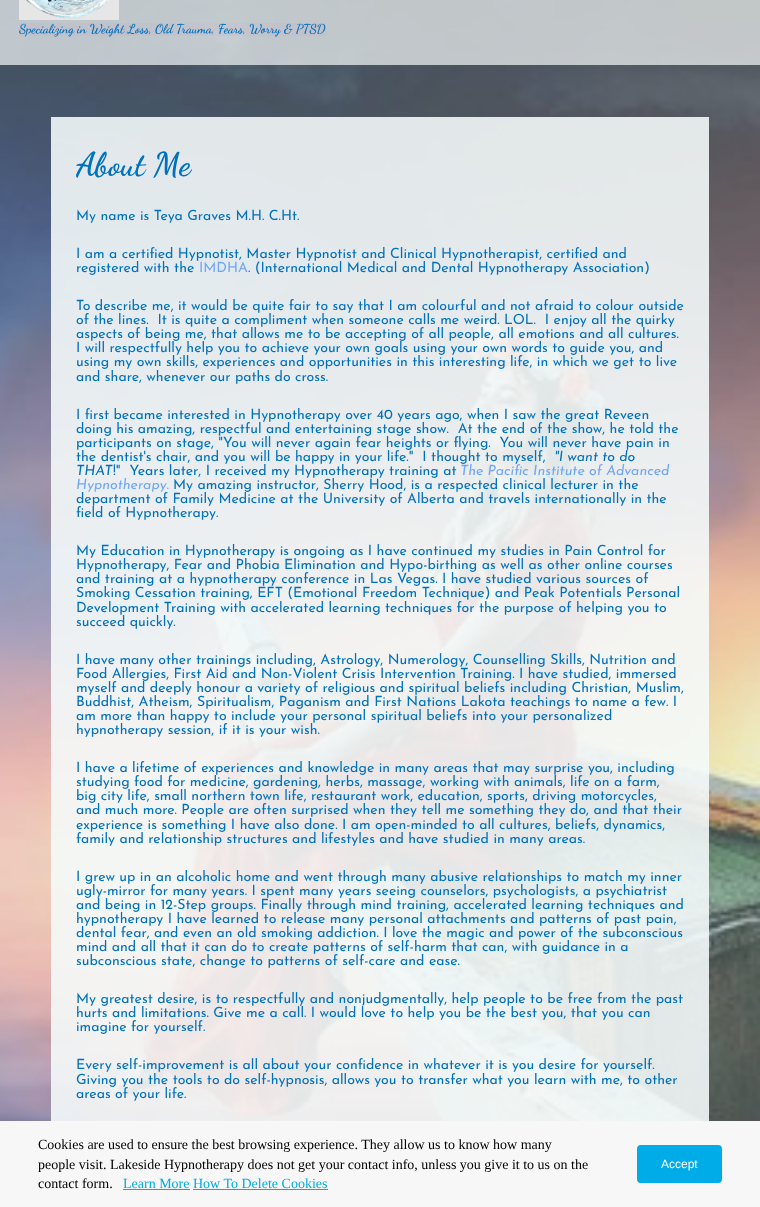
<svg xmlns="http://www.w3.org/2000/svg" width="760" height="1207">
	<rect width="100%" height="100%" fill="#FFFFFF" />
	<image x="0" y="0" width="760" height="1121" href="assets/img1.png" />
	<rect x="0" y="0" width="760" height="65" fill="#F5FAFA" fill-opacity="0.7" />
	<image x="19" y="0" width="100" height="20" href="assets/img2.png" />
	<rect x="19" y="23" width="307" height="13" fill="#E629CD" fill-opacity="0.04" />
	<text x="19" y="33" font-family="Dancing Script" font-size="12.8" font-weight="700" fill="#0071BD">Specializing in Weight Loss, Old Trauma, Fears, Worry &amp; PTSD</text>
	<rect x="51" y="117" width="658" height="1004" fill="#F5FAFA" fill-opacity="0.89" />
	<text x="76" y="175" font-family="Dancing Script" font-size="33" font-weight="700" fill="#0071BD">About Me</text>
	<g font-family="Josefin Sans" font-size="14.1" fill="#0071BD">
		<text x="76" y="220">My name is Teya Graves M.H. C.Ht.</text>
		<text x="76" y="258">I am a certified Hypnotist, Master Hypnotist and Clinical Hypnotherapist, certified and</text>
		<text x="76" y="272">registered with the</text>
	</g>
	<text x="199" y="272" font-family="Josefin Sans" font-size="14.1" fill="#71A7F7">IMDHA</text>
	<g font-family="Josefin Sans" font-size="14.1" fill="#0071BD">
		<text x="248" y="272">. (International Medical and Dental Hypnotherapy Association)</text>
		<text x="76" y="310">To describe me, it would be quite fair to say that I am colourful and not afraid to colour outside</text>
		<text x="76" y="324" xml:space="preserve">of the lines.  It is quite a compliment when someone calls me weird. LOL.  I enjoy all the quirky</text>
		<text x="76" y="338">aspects of being me, that allows me to be accepting of all people, all emotions and all cultures.</text>
		<text x="76" y="352">I will respectfully help you to achieve your own goals using your own words to guide you, and</text>
		<text x="76" y="366">using my own skills, experiences and opportunities in this interesting life, in which we get to live</text>
		<text x="76" y="381">and share, whenever our paths do cross.</text>
		<text x="76" y="419">I first became interested in Hypnotherapy over 40 years ago, when I saw the great Reveen</text>
		<text x="76" y="433" xml:space="preserve">doing his amazing, respectful and entertaining stage show.  At the end of the show, he told the</text>
		<text x="76" y="447" xml:space="preserve">participants on stage, "You will never again fear heights or flying.  You will never have pain in</text>
		<text x="76" y="461" xml:space="preserve">the dentist's chair, and you will be happy in your life."  I thought to myself,</text>
	</g>
	<g font-family="Josefin Sans" font-size="14.1" font-style="italic" fill="#0071BD">
		<text x="554" y="461">"I want to do</text>
		<text x="76" y="475">THAT</text>
	</g>
	<text x="113" y="475" font-family="Josefin Sans" font-size="14.1" fill="#0071BD" xml:space="preserve">!"  Years later, I received my Hypnotherapy training at</text>
	<g font-family="Josefin Sans" font-size="14.1" font-style="italic" fill="#71A7F7">
		<text x="460" y="475">The Pacific Institute of Advanced</text>
		<text x="76" y="489">Hypnotherapy.</text>
	</g>
	<g font-family="Josefin Sans" font-size="14.1" fill="#0071BD">
		<text x="173" y="489">My amazing instructor, Sherry Hood, is a respected clinical lecturer in the</text>
		<text x="76" y="503">department of Family Medicine at the University of Alberta and travels internationally in the</text>
		<text x="76" y="517">field of Hypnotherapy.</text>
		<text x="76" y="555">My Education in Hypnotherapy is ongoing as I have continued my studies in Pain Control for</text>
		<text x="76" y="569">Hypnotherapy, Fear and Phobia Elimination and Hypo-birthing as well as other online courses</text>
		<text x="76" y="583">and training at a hypnotherapy conference in Las Vegas. I have studied various sources of</text>
		<text x="76" y="597">Smoking Cessation training, EFT (Emotional Freedom Technique) and Peak Potentials Personal</text>
		<text x="76" y="612">Development Training with accelerated learning techniques for the purpose of helping you to</text>
		<text x="76" y="626">succeed quickly.</text>
		<text x="76" y="664">I have many other trainings including, Astrology, Numerology, Counselling Skills, Nutrition and</text>
		<text x="76" y="678">Food Allergies, First Aid and Non-Violent Crisis Intervention Training. I have studied, immersed</text>
		<text x="76" y="692">myself and deeply honour a variety of religious and spiritual beliefs including Christian, Muslim,</text>
		<text x="76" y="706">Buddhist, Atheism, Spiritualism, Paganism and First Nations Lakota teachings to name a few. I</text>
		<text x="76" y="720">am more than happy to include your personal spiritual beliefs into your personalized</text>
		<text x="76" y="734">hypnotherapy session, if it is your wish.</text>
		<text x="76" y="772">I have a lifetime of experiences and knowledge in many areas that may surprise you, including</text>
		<text x="76" y="786">studying food for medicine, gardening, herbs, massage, working with animals, life on a farm,</text>
		<text x="76" y="800">big city life, small northern town life, restaurant work, education, sports, driving motorcycles,</text>
		<text x="76" y="814">and much more. People are often surprised when they tell me something they do, and that their</text>
		<text x="76" y="829">experience is something I have also done. I am open-minded to all cultures, beliefs, dynamics,</text>
		<text x="76" y="843">family and relationship structures and lifestyles and have studied in many areas.</text>
		<text x="76" y="881">I grew up in an alcoholic home and went through many abusive relationships to match my inner</text>
		<text x="76" y="895">ugly-mirror for many years. I spent many years seeing counselors, psychologists, a psychiatrist</text>
		<text x="76" y="909">and being in 12-Step groups. Finally through mind training, accelerated learning techniques and</text>
		<text x="76" y="923">hypnotherapy I have learned to release many personal attachments and patterns of past pain,</text>
		<text x="76" y="937">dental fear, and even an old smoking addiction. I love the magic and power of the subconscious</text>
		<text x="76" y="951">mind and all that it can do to create patterns of self-harm that can, with guidance in a</text>
		<text x="76" y="965">subconscious state, change to patterns of self-care and ease.</text>
		<text x="76" y="1003">My greatest desire, is to respectfully and nonjudgmentally, help people to be free from the past</text>
		<text x="76" y="1017">hurts and limitations. Give me a call. I would love to help you be the best you, that you can</text>
		<text x="76" y="1031">imagine for yourself.</text>
		<text x="76" y="1069">Every self-improvement is all about your confidence in whatever it is you desire for yourself.</text>
		<text x="76" y="1084">Giving you the tools to do self-hypnosis, allows you to transfer what you learn with me, to other</text>
		<text x="76" y="1098">areas of your life.</text>
	</g>
	<rect x="0" y="1121" width="760" height="86" fill="#F7F7F7" />
	<g font-family="Liberation Serif" font-size="14" fill="#000000">
		<text x="38" y="1149">Cookies are used to ensure the best browsing experience. They allow us to know how many</text>
		<text x="38" y="1169">people visit. Lakeside Hypnotherapy does not get your contact info, unless you give it to us on the</text>
		<text x="38" y="1188">contact form.</text>
	</g>
	<text x="123" y="1188" font-family="Liberation Serif" font-size="14" fill="#00ACE6">Learn More How To Delete Cookies</text>
	<rect x="123" y="1189" width="67" height="1" fill="#00ACE6" />
	<rect x="193" y="1189" width="135" height="1" fill="#00ACE6" />
	<rect x="637" y="1145" width="85" height="38" rx="4" fill="#00ACE8" />
	<text x="661" y="1168" font-family="Liberation Sans" font-size="12" fill="#FFFFFF">Accept</text>
</svg>
